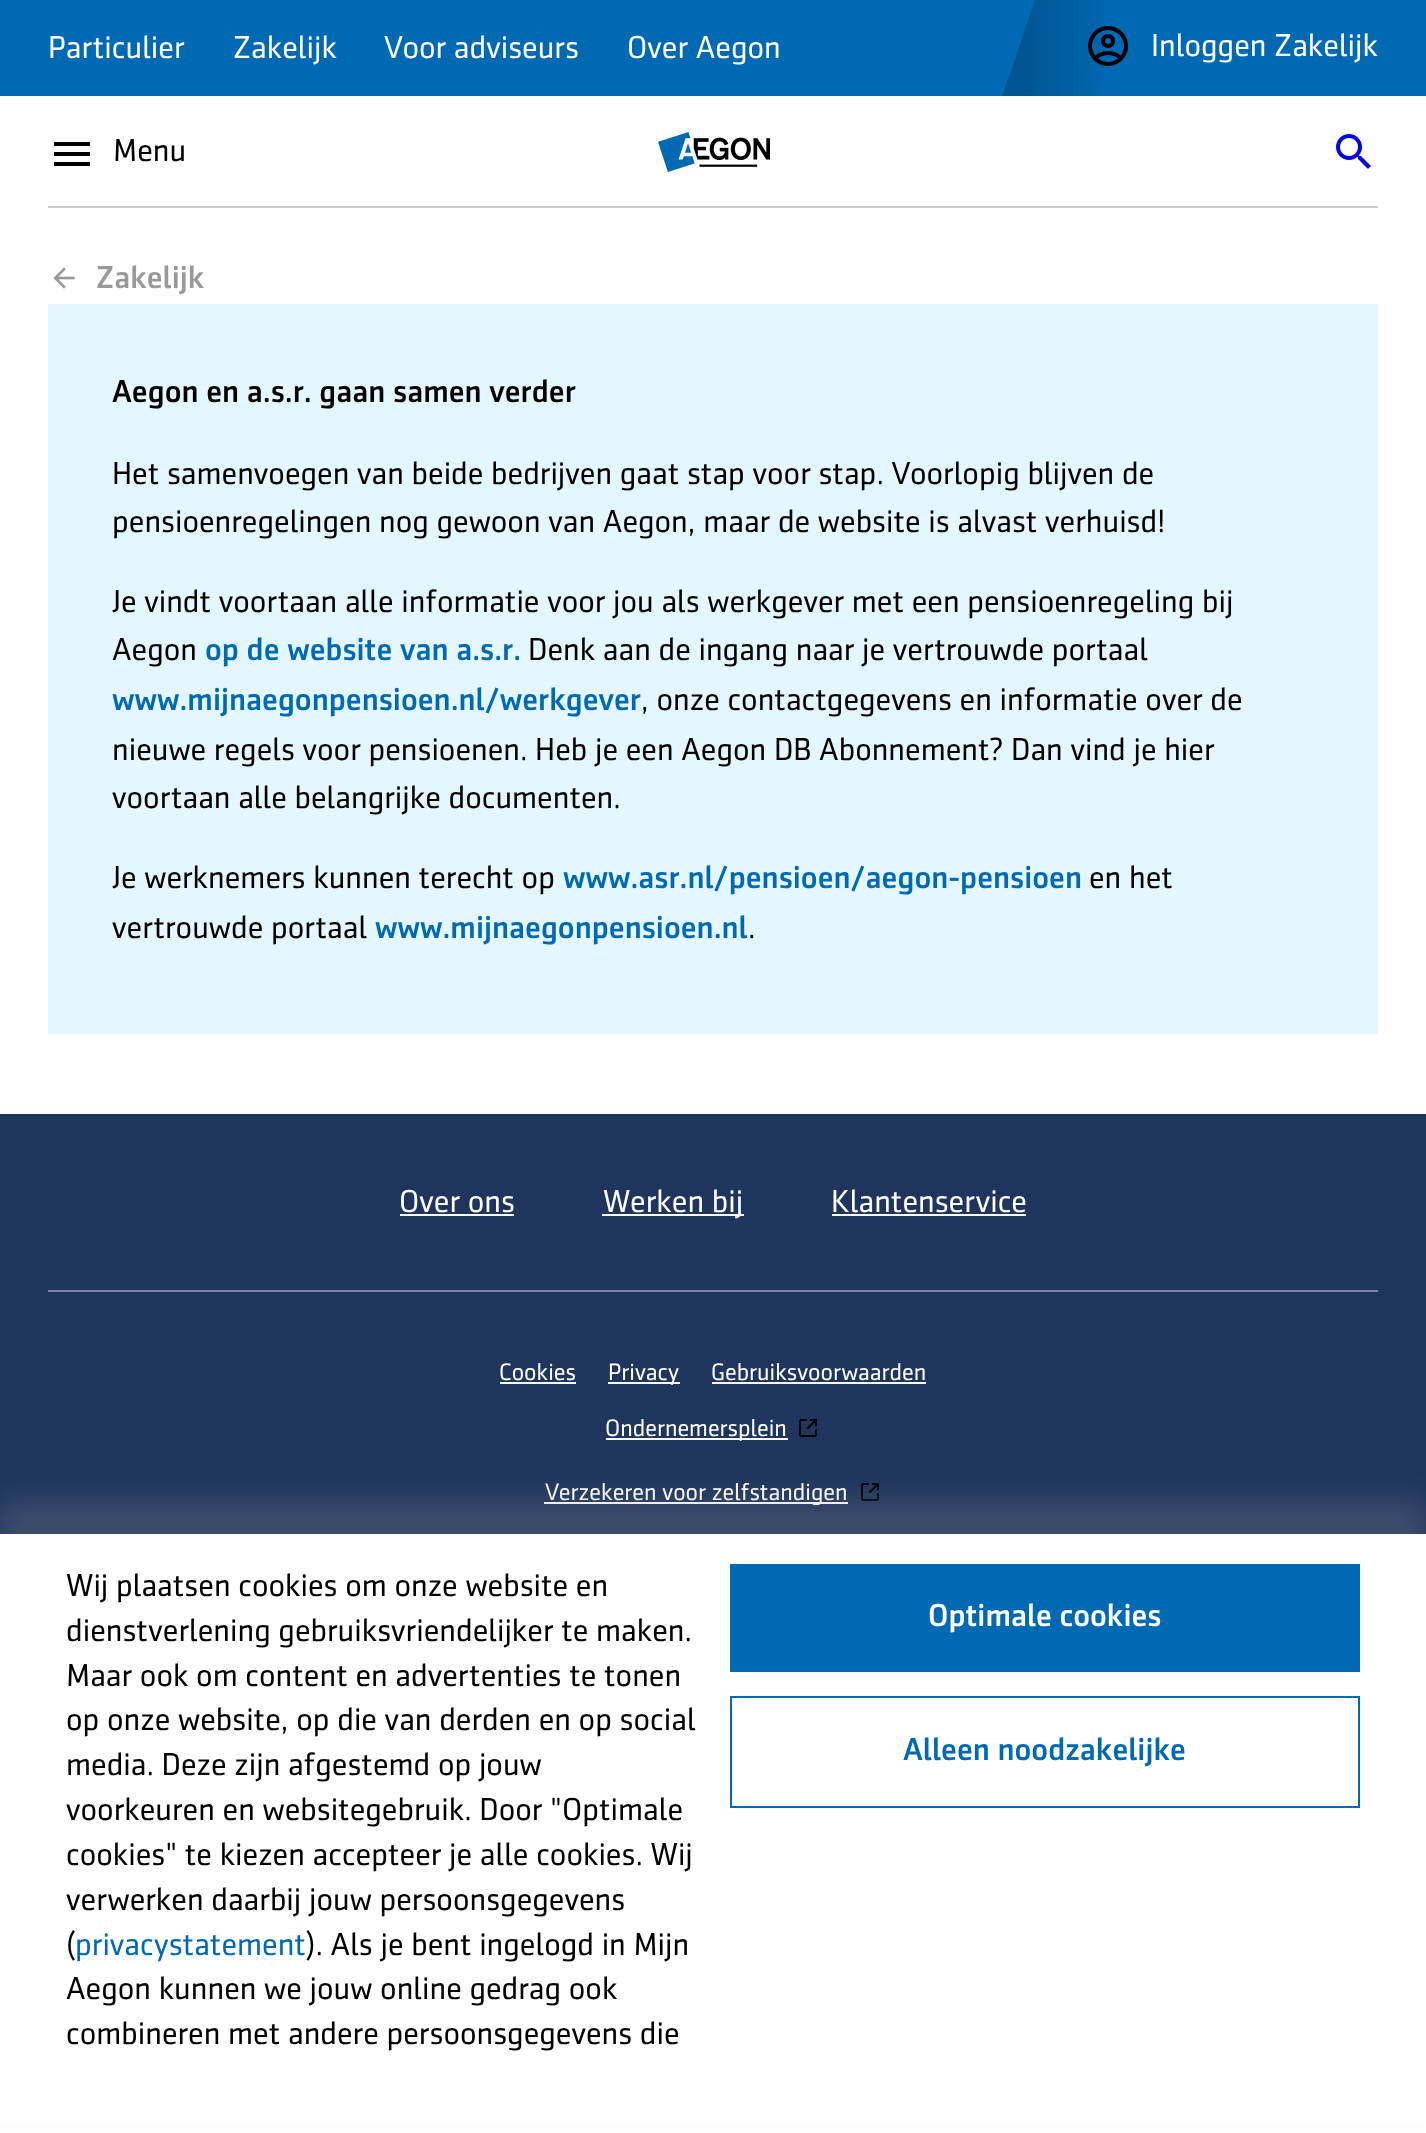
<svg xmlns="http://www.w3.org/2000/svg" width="1426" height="2133">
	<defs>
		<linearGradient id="g1" gradientUnits="userSpaceOnUse" x1="1019" y1="48" x2="1115" y2="48"><stop offset="0" stop-color="#000000" stop-opacity="0.2" /><stop offset="1" stop-color="#000000" stop-opacity="0" /></linearGradient>
	</defs>
	<rect width="100%" height="100%" fill="#FFFFFF" />
	<rect x="0" y="0" width="1426" height="96" fill="#0069B4" />
	<g font-family="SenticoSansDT" font-size="32" fill="#FFFFFF">
		<text x="48" y="58">Particulier</text>
		<text x="233" y="58">Zakelijk</text>
		<text x="384" y="58">Voor adviseurs</text>
		<text x="627" y="58">Over Aegon</text>
	</g>
	<image x="1088" y="26" width="40" height="40" href="assets/img1.png" />
	<path d="M1035 0H1131L1098 96H1002Z" fill="url(#g1)" />
	<text x="1151" y="56" font-family="SenticoSansDT" font-size="32" fill="#FFFFFF">Inloggen Zakelijk</text>
	<rect x="48" y="206" width="1330" height="2" fill="#CCCCCC" />
	<path d="M54 166H90V162H54ZM54 156H90V152H54ZM54 142V146H90V142Z" fill="#000000" />
	<text x="113" y="161" font-family="SenticoSansDT" font-size="32" fill="#000000">Menu</text>
	<image x="658" y="132" width="112" height="40" href="assets/img2.png" />
	<image x="1336" y="134" width="35" height="35" href="assets/img3.png" />
	<image x="53" y="267" width="22" height="22" href="assets/img4.png" />
	<text x="96" y="288" font-family="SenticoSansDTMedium" font-size="32" font-weight="500" fill="#999999">Zakelijk</text>
	<rect x="48" y="304" width="1330" height="730" fill="#E4F6FF" />
	<text x="112" y="402" font-family="SenticoSansDTMedium" font-size="32" font-weight="500" fill="#000000">Aegon en a.s.r. gaan samen verder</text>
	<g font-family="SenticoSansDT" font-size="32" fill="#000000">
		<text x="112" y="484">Het samenvoegen van beide bedrijven gaat stap voor stap. Voorlopig blijven de</text>
		<text x="112" y="532">pensioenregelingen nog gewoon van Aegon, maar de website is alvast verhuisd!</text>
		<text x="112" y="612">Je vindt voortaan alle informatie voor jou als werkgever met een pensioenregeling bij</text>
		<text x="112" y="660">Aegon</text>
	</g>
	<text x="205" y="660" font-family="SenticoSansDTMedium" font-size="32" font-weight="500" fill="#0069B4">op de website van a.s.r.</text>
	<text x="528" y="660" font-family="SenticoSansDT" font-size="32" fill="#000000">Denk aan de ingang naar je vertrouwde portaal</text>
	<text x="112" y="710" font-family="SenticoSansDTMedium" font-size="32" font-weight="500" fill="#0069B4">www.mijnaegonpensioen.nl/werkgever</text>
	<g font-family="SenticoSansDT" font-size="32" fill="#000000">
		<text x="641" y="710">, onze contactgegevens en informatie over de</text>
		<text x="112" y="760">nieuwe regels voor pensioenen. Heb je een Aegon DB Abonnement? Dan vind je hier</text>
		<text x="112" y="808">voortaan alle belangrijke documenten.</text>
		<text x="112" y="888">Je werknemers kunnen terecht op</text>
	</g>
	<text x="563" y="888" font-family="SenticoSansDTMedium" font-size="32" font-weight="500" fill="#0069B4">www.asr.nl/pensioen/aegon-pensioen</text>
	<g font-family="SenticoSansDT" font-size="32" fill="#000000">
		<text x="1089" y="888">en het</text>
		<text x="112" y="938">vertrouwde portaal</text>
	</g>
	<text x="375" y="938" font-family="SenticoSansDTMedium" font-size="32" font-weight="500" fill="#0069B4">www.mijnaegonpensioen.nl</text>
	<text x="748" y="938" font-family="SenticoSansDT" font-size="32" fill="#000000">.</text>
	<rect x="0" y="1114" width="1426" height="420" fill="#1F355E" />
	<rect x="48" y="1290" width="1330" height="2" fill="#79869E" />
	<text x="399" y="1212" font-family="SenticoSansDT" font-size="32" fill="#FFFFFF">Over ons</text>
	<rect x="400" y="1214" width="114" height="2" fill="#FFFFFF" />
	<rect x="602" y="1214" width="142" height="2" fill="#FFFFFF" />
	<g font-family="SenticoSansDT" font-size="32" fill="#FFFFFF">
		<text x="603" y="1212">Werken bij</text>
		<text x="831" y="1212">Klantenservice</text>
	</g>
	<rect x="832" y="1214" width="194" height="2" fill="#FFFFFF" />
	<text x="499" y="1380" font-family="SenticoSansDT" font-size="24" fill="#FFFFFF">Cookies</text>
	<rect x="500" y="1382" width="76" height="2" fill="#FFFFFF" />
	<rect x="608" y="1382" width="72" height="2" fill="#FFFFFF" />
	<g font-family="SenticoSansDT" font-size="24" fill="#FFFFFF">
		<text x="608" y="1380">Privacy</text>
		<text x="711" y="1380">Gebruiksvoorwaarden</text>
	</g>
	<rect x="712" y="1382" width="214" height="2" fill="#FFFFFF" />
	<rect x="606" y="1438" width="182" height="2" fill="#FFFFFF" />
	<text x="605" y="1436" font-family="SenticoSansDT" font-size="24" fill="#FFFFFF">Ondernemersplein</text>
	<image x="799" y="1419" width="18" height="18" href="assets/img5.png" />
	<rect x="544" y="1502" width="304" height="2" fill="#FFFFFF" />
	<text x="545" y="1500" font-family="SenticoSansDT" font-size="24" fill="#FFFFFF">Verzekeren voor zelfstandigen</text>
	<image x="861" y="1483" width="18" height="18" href="assets/img5.png" />
	<rect x="-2" y="1500" width="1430" height="604" fill="#999999" fill-opacity="0.25" filter="blur(16px)" />
	<rect x="0" y="1534" width="1426" height="590" fill="#FFFFFF" />
	<g font-family="SenticoSansDT" font-size="32" fill="#000000">
		<text x="66" y="1596">Wij plaatsen cookies om onze website en</text>
		<text x="66" y="1641">dienstverlening gebruiksvriendelijker te maken.</text>
		<text x="66" y="1686">Maar ook om content en advertenties te tonen</text>
		<text x="66" y="1730">op onze website, op die van derden en op social</text>
		<text x="66" y="1775">media. Deze zijn afgestemd op jouw</text>
		<text x="66" y="1820">voorkeuren en websitegebruik. Door "Optimale</text>
		<text x="66" y="1865">cookies" te kiezen accepteer je alle cookies. Wij</text>
		<text x="66" y="1910">verwerken daarbij jouw persoonsgegevens</text>
		<text x="66" y="1955">(</text>
	</g>
	<text x="75" y="1955" font-family="SenticoSansDT" font-size="32" fill="#0069B4">privacystatement</text>
	<g font-family="SenticoSansDT" font-size="32" fill="#000000">
		<text x="306" y="1955">). Als je bent ingelogd in Mijn</text>
		<text x="66" y="1999">Aegon kunnen we jouw online gedrag ook</text>
		<text x="66" y="2044">combineren met andere persoonsgegevens die</text>
	</g>
	<rect x="730" y="1564" width="630" height="108" fill="#0069B4" />
	<text x="928" y="1626" font-family="SenticoSansDTMedium" font-size="32" font-weight="500" fill="#FFFFFF">Optimale cookies</text>
	<rect x="731" y="1697" width="628" height="110" fill="none" stroke="#0069B4" stroke-width="2" />
	<text x="903" y="1760" font-family="SenticoSansDTMedium" font-size="32" font-weight="500" fill="#0069B4">Alleen noodzakelijke</text>
</svg>
